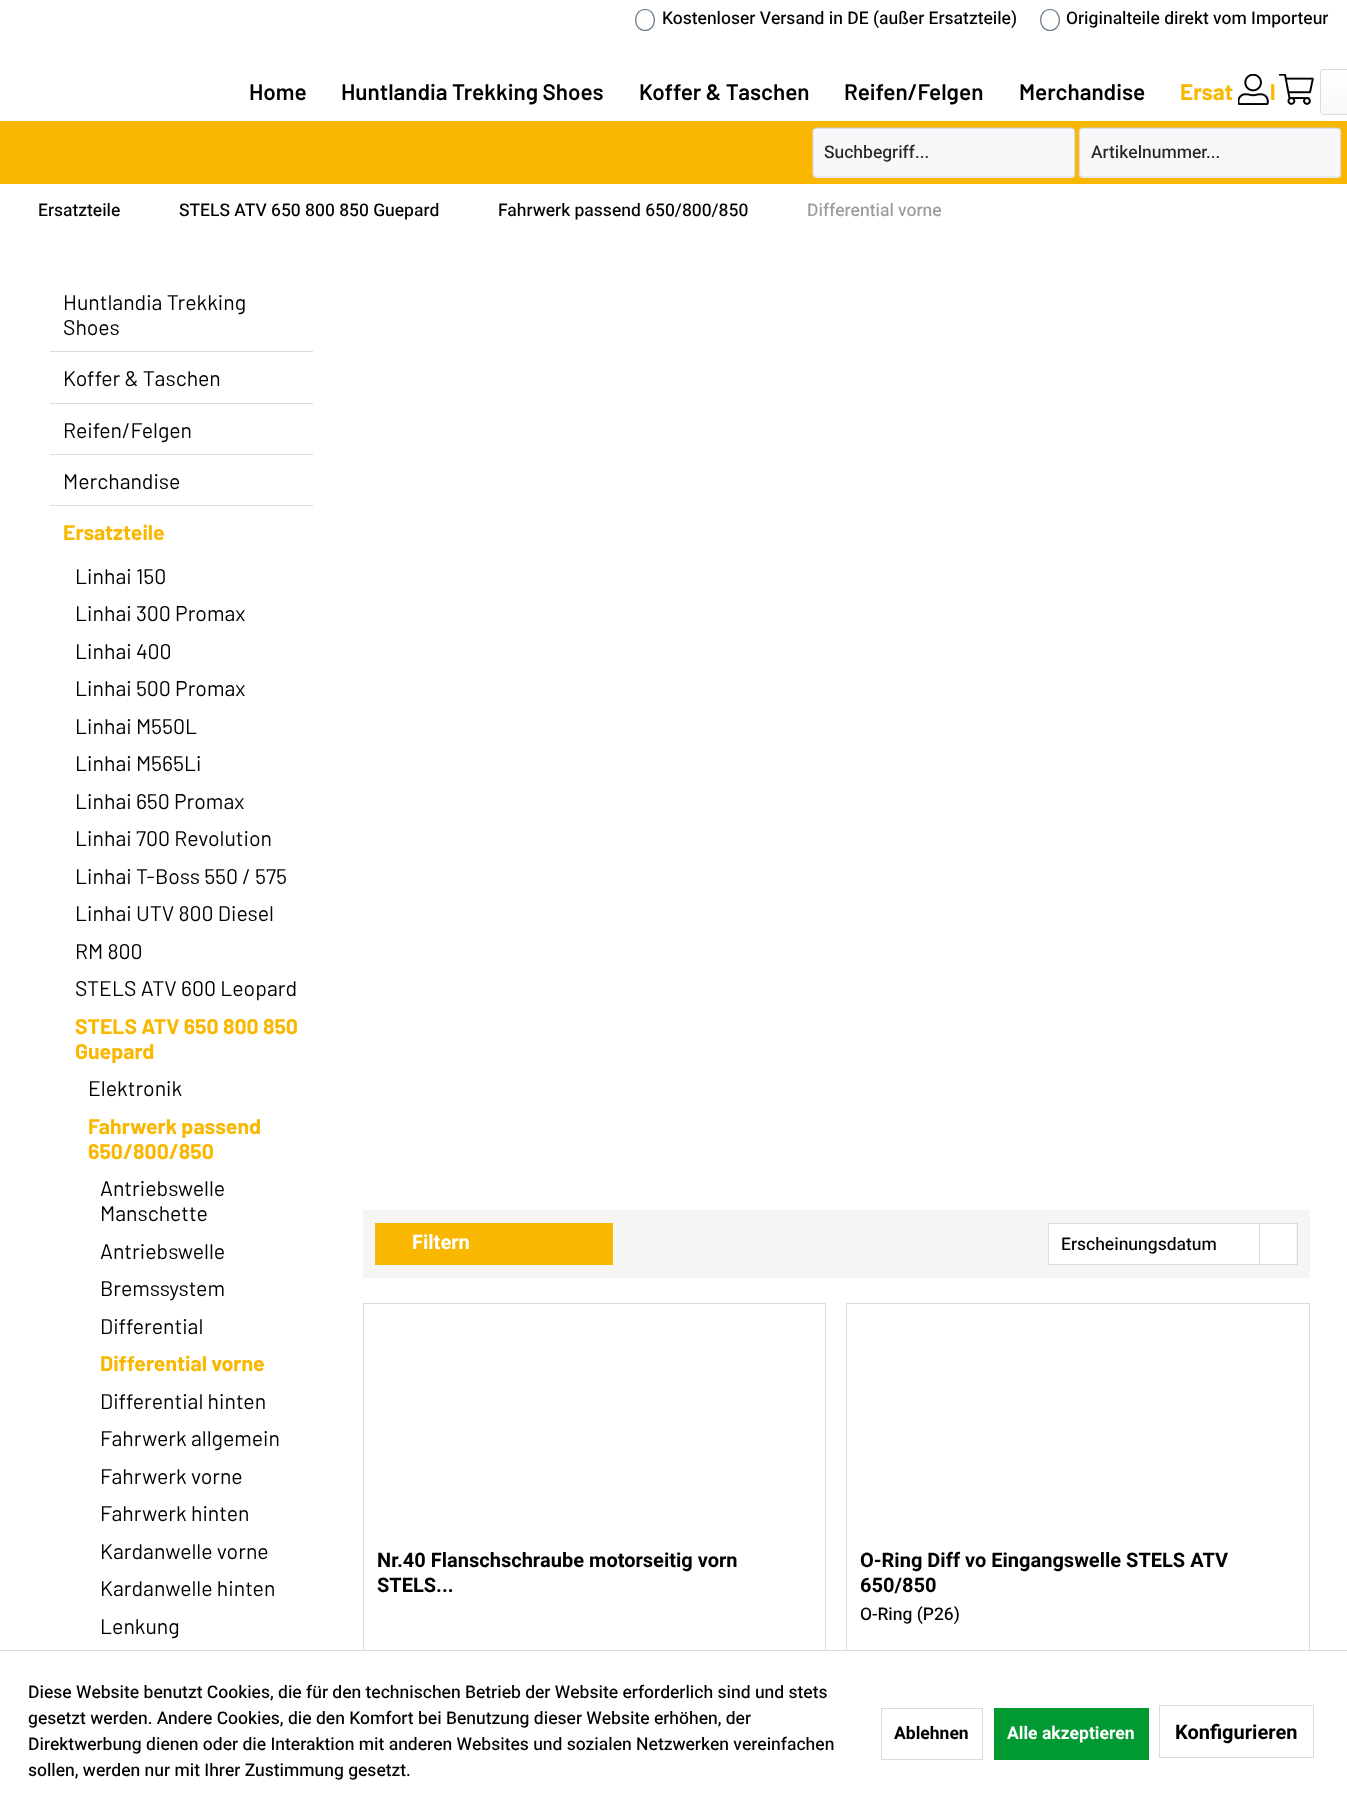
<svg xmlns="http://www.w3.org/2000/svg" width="1347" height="1811">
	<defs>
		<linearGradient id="g1" gradientUnits="userSpaceOnUse" x1="1334" y1="70" x2="1334" y2="114"><stop offset="0" stop-color="#FFFFFF" /><stop offset="1" stop-color="#F8F8FA" /></linearGradient>
	</defs>
	<rect width="100%" height="100%" fill="#FFFFFF" />
	<text x="662" y="24" font-family="Heebo" font-size="17.5" font-weight="500" fill="#000000">Kostenloser Versand in DE (außer Ersatzteile)</text>
	<path d="M645 9.5C657.5 9.5 657.5 30.5 645 30.5C632.5 30.5 632.5 9.5 645 9.5Z" fill="none" stroke="#5F7285" stroke-width="1.2" />
	<text x="1066" y="24" font-family="Heebo" font-size="17.5" font-weight="500" fill="#000000">Originalteile direkt vom Importeur</text>
	<path d="M1050 9.5C1062.5 9.5 1062.5 30.5 1050 30.5C1037.5 30.5 1037.5 9.5 1050 9.5Z" fill="none" stroke="#5F7285" stroke-width="1.2" />
	<image x="1238" y="74" width="31" height="31" href="assets/img1.png" />
	<image x="1279" y="74" width="35" height="31" href="assets/img2.png" />
	<g font-family="Barlow" font-size="22.5" font-weight="600" fill="#000000">
		<text x="249" y="100">Home</text>
		<text x="341" y="100">Huntlandia Trekking Shoes</text>
		<text x="639" y="100">Koffer &amp; Taschen</text>
		<text x="844" y="100">Reifen/Felgen</text>
		<text x="1019" y="100">Merchandise</text>
	</g>
	<g font-family="Barlow" font-size="22.5" font-weight="700" fill="#F9B700">
		<text x="1180" y="100">Ersat</text>
		<text x="1270" y="100">l</text>
	</g>
	<path d="M1323.5 70H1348V114H1323.5C1322 114 1321 113 1321 111.5V72.5C1321 71 1322 70 1323.5 70Z" fill="url(#g1)" />
	<path d="M1324 69H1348V115H1324C1322 115 1320 113 1320 111V72C1320 70 1322 69 1324 69ZM1324 70H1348V114H1324C1322 114 1321 113 1321 111V72C1321 71 1322 70 1324 70Z" fill="#DADAE5" fill-rule="evenodd" />
	<rect x="0" y="121" width="1347" height="63" fill="#F9B700" />
	<rect x="813" y="128" width="262" height="50" rx="4" fill="#F8F8FA" />
	<path d="M814 129L816 128H1071L1073.5 129" fill="none" stroke="#CBCBDB" stroke-width="1.2" />
	<path d="M1073.5 129L1074.5 131V174L1073.5 176L1071 177H816L814 176L813 174V131L814 129" fill="none" stroke="#DADAE5" stroke-width="1.2" />
	<text x="824" y="158" font-family="Heebo" font-size="17.5" font-weight="500" fill="#262626">Suchbegriff...</text>
	<rect x="1079" y="128" width="262" height="50" rx="4" fill="#F8F8FA" />
	<path d="M1080.5 129L1082.5 128H1337.5L1339.5 129" fill="none" stroke="#CBCBDB" stroke-width="1.2" />
	<path d="M1339.5 129L1340.5 131V174L1339.5 176L1337.5 177H1082.5L1080.5 176L1079.5 174V131L1080.5 129" fill="none" stroke="#DADAE5" stroke-width="1.2" />
	<text x="1091" y="158" font-family="Heebo" font-size="17.5" font-weight="500" fill="#262626">Artikelnummer...</text>
	<g font-family="Heebo" font-size="17.5" font-weight="500" fill="#000000">
		<text x="38" y="216">Ersatzteile</text>
		<text x="179" y="216">STELS ATV 650 800 850 Guepard</text>
		<text x="498" y="216">Fahrwerk passend 650/800/850</text>
	</g>
	<text x="807" y="216" font-family="Heebo" font-size="17.5" font-weight="500" fill="#9B9B9B">Differential vorne</text>
	<rect x="50" y="351" width="263" height="1" fill="#DADAE5" />
	<g font-family="Barlow" font-size="21.25" fill="#000000">
		<text x="63" y="310">Huntlandia Trekking</text>
		<text x="63" y="335">Shoes</text>
	</g>
	<rect x="50" y="403" width="263" height="1" fill="#DADAE5" />
	<text x="63" y="386" font-family="Barlow" font-size="21.25" fill="#000000">Koffer &amp; Taschen</text>
	<rect x="50" y="454" width="263" height="1" fill="#DADAE5" />
	<text x="63" y="438" font-family="Barlow" font-size="21.25" fill="#000000">Reifen/Felgen</text>
	<rect x="50" y="505" width="263" height="1" fill="#DADAE5" />
	<text x="63" y="489" font-family="Barlow" font-size="21.25" fill="#000000">Merchandise</text>
	<text x="63" y="540" font-family="Barlow" font-size="21.25" font-weight="700" fill="#F9B700">Ersatzteile</text>
	<g font-family="Barlow" font-size="21.25" fill="#000000">
		<text x="75" y="584">Linhai 150</text>
		<text x="75" y="621">Linhai 300 Promax</text>
		<text x="75" y="659">Linhai 400</text>
		<text x="75" y="696">Linhai 500 Promax</text>
		<text x="75" y="734">Linhai M550L</text>
		<text x="75" y="771">Linhai M565Li</text>
		<text x="75" y="809">Linhai 650 Promax</text>
		<text x="75" y="846">Linhai 700 Revolution</text>
		<text x="75" y="884">Linhai T-Boss 550 / 575</text>
		<text x="75" y="921">Linhai UTV 800 Diesel</text>
		<text x="75" y="959">RM 800</text>
		<text x="75" y="996">STELS ATV 600 Leopard</text>
	</g>
	<g font-family="Barlow" font-size="21.25" font-weight="700" fill="#F9B700">
		<text x="75" y="1034">STELS ATV 650 800 850</text>
		<text x="75" y="1059">Guepard</text>
	</g>
	<text x="88" y="1096" font-family="Barlow" font-size="21.25" fill="#000000">Elektronik</text>
	<g font-family="Barlow" font-size="21.25" font-weight="700" fill="#F9B700">
		<text x="88" y="1134">Fahrwerk passend</text>
		<text x="88" y="1159">650/800/850</text>
	</g>
	<g font-family="Barlow" font-size="21.25" fill="#000000">
		<text x="100" y="1196">Antriebswelle</text>
		<text x="100" y="1221">Manschette</text>
		<text x="100" y="1259">Antriebswelle</text>
		<text x="100" y="1296">Bremssystem</text>
		<text x="100" y="1334">Differential</text>
	</g>
	<text x="100" y="1371" font-family="Barlow" font-size="21.25" font-weight="700" fill="#F9B700">Differential vorne</text>
	<g font-family="Barlow" font-size="21.25" fill="#000000">
		<text x="100" y="1409">Differential hinten</text>
		<text x="100" y="1446">Fahrwerk allgemein</text>
		<text x="100" y="1484">Fahrwerk vorne</text>
		<text x="100" y="1521">Fahrwerk hinten</text>
		<text x="100" y="1559">Kardanwelle vorne</text>
		<text x="100" y="1596">Kardanwelle hinten</text>
		<text x="100" y="1634">Lenkung</text>
	</g>
	<rect x="363" y="1210" width="947" height="68" fill="#F5F5F5" />
	<rect x="375" y="1223" width="238" height="42" fill="#F9B700" />
	<text x="412" y="1249" font-family="Heebo" font-size="20" font-weight="700" fill="#FFFFFF">Filtern</text>
	<rect x="1049" y="1224" width="247" height="40" fill="#FFFFFF" />
	<rect x="1048.5" y="1223.5" width="249" height="41" fill="none" stroke="#DADAE5" />
	<text x="1061" y="1250" font-family="Heebo" font-size="17.5" font-weight="500" fill="#000000">Erscheinungsdatum</text>
	<rect x="1259" y="1224" width="1" height="41" fill="#DADAE5" />
	<rect x="363.5" y="1303.5" width="462" height="479" fill="none" stroke="#DADAE5" />
	<g font-family="Heebo" font-size="20" font-weight="700" fill="#000000">
		<text x="377" y="1567">Nr.40 Flanschschraube motorseitig vorn</text>
		<text x="377" y="1592">STELS...</text>
	</g>
	<rect x="846.5" y="1303.5" width="463" height="479" fill="none" stroke="#DADAE5" />
	<g font-family="Heebo" font-size="20" font-weight="700" fill="#000000">
		<text x="860" y="1567">O-Ring Diff vo Eingangswelle STELS ATV</text>
		<text x="860" y="1592">650/850</text>
	</g>
	<text x="860" y="1620" font-family="Heebo" font-size="17.5" font-weight="500" fill="#000000">O-Ring (P26)</text>
	<rect x="363" y="1651" width="947" height="132" fill="#FFFFFF" />
	<rect x="0" y="1650" width="1347" height="1" fill="#DADAE5" />
	<g font-family="Heebo" font-size="17.5" font-weight="500" fill="#000000">
		<text x="28" y="1698">Diese Website benutzt Cookies, die für den technischen Betrieb der Website erforderlich sind und stets</text>
		<text x="28" y="1724">gesetzt werden. Andere Cookies, die den Komfort bei Benutzung dieser Website erhöhen, der</text>
		<text x="28" y="1750">Direktwerbung dienen oder die Interaktion mit anderen Websites und sozialen Netzwerken vereinfachen</text>
		<text x="28" y="1776">sollen, werden nur mit Ihrer Zustimmung gesetzt.</text>
	</g>
	<rect x="881.5" y="1708.5" width="101" height="51" fill="none" stroke="#DADAE5" />
	<text x="894" y="1739" font-family="Heebo" font-size="17.5" font-weight="700" fill="#000000">Ablehnen</text>
	<rect x="994" y="1708" width="155" height="52" fill="#009932" />
	<text x="1007" y="1739" font-family="Heebo" font-size="17.5" font-weight="700" fill="#FFFFFF">Alle akzeptieren</text>
	<rect x="1159.5" y="1705.5" width="154" height="52" fill="none" stroke="#DADAE5" />
	<text x="1175" y="1739" font-family="Heebo" font-size="20" font-weight="700" fill="#000000">Konfigurieren</text>
</svg>
